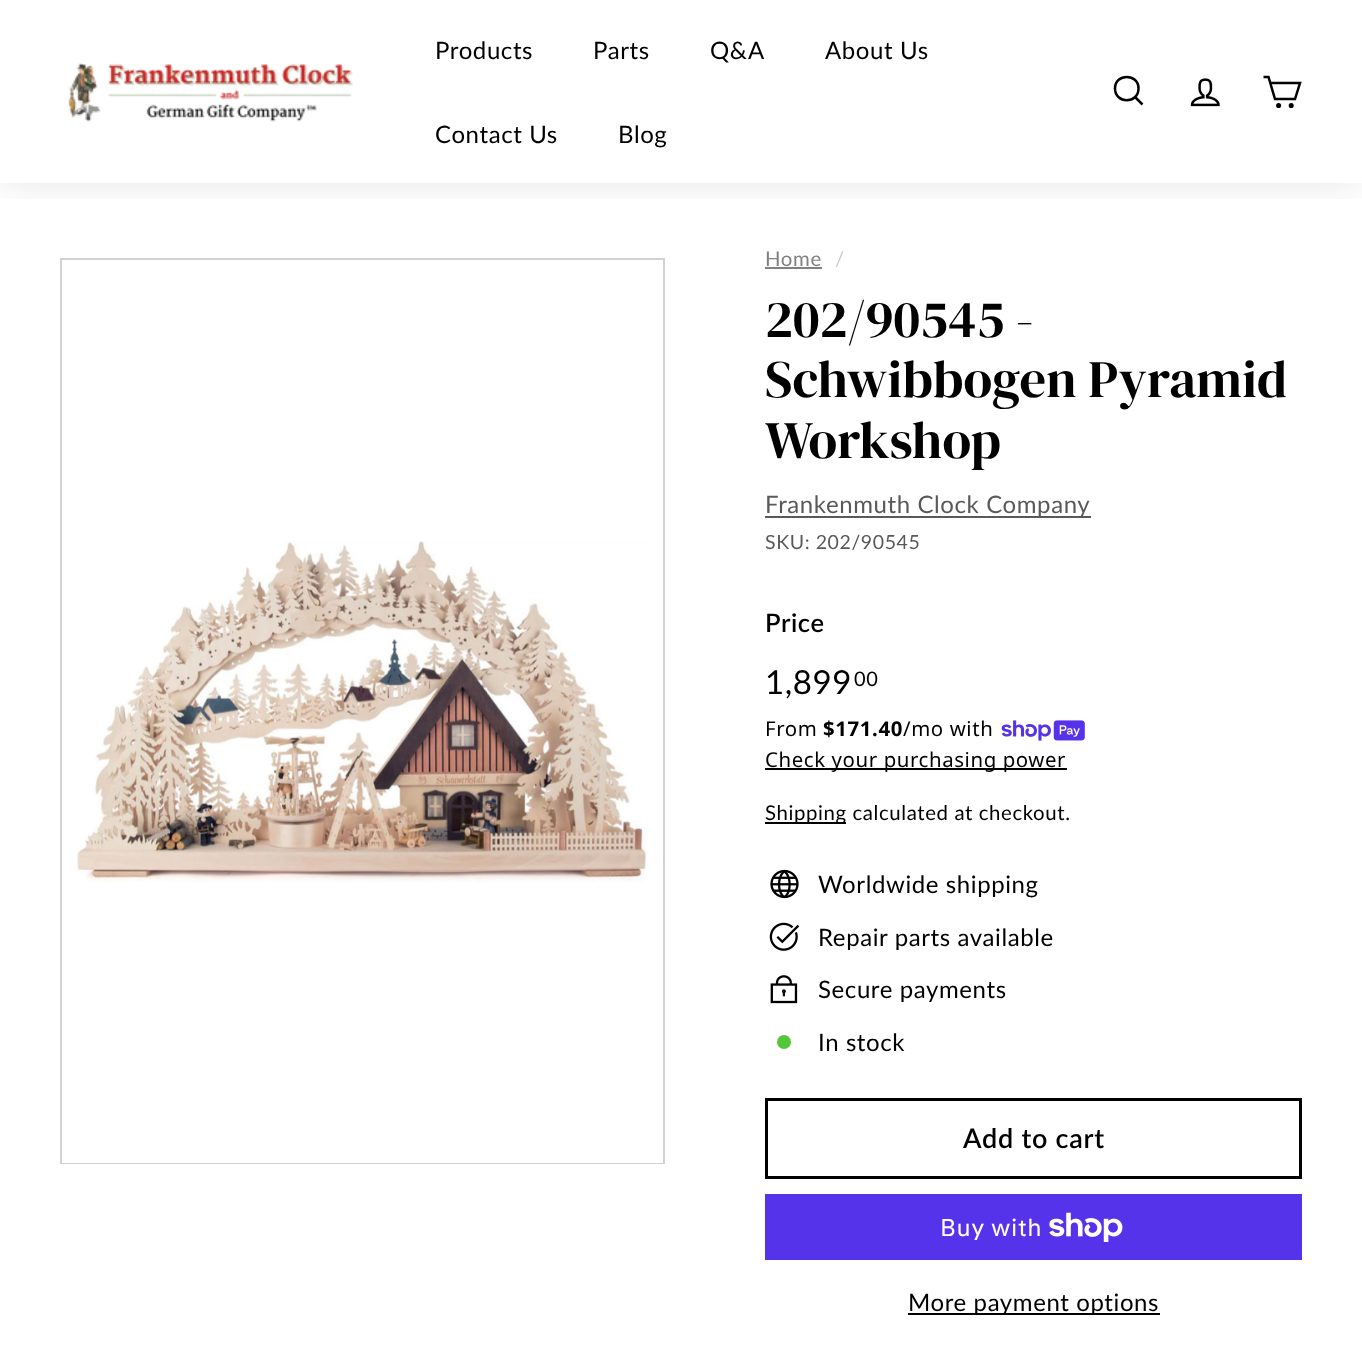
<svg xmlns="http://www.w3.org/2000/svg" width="1362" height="1349">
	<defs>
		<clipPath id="clip1"><rect x="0" y="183" width="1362" height="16" /></clipPath>
	</defs>
	<rect width="100%" height="100%" fill="#FFFFFF" />
	<g clip-path="url(#clip1)">
		<rect x="0" y="0" width="1362" height="183" fill="#000000" fill-opacity="0.1" filter="blur(19px)" />
	</g>
	<image x="67" y="62" width="286" height="60" href="assets/img1.png" />
	<g font-family="Lato" font-size="24" letter-spacing="0.6" fill="#000000">
		<text x="435" y="59">Products</text>
		<text x="593" y="59">Parts</text>
		<text x="710" y="59">Q&amp;A</text>
		<text x="825" y="59">About Us</text>
		<text x="435" y="143">Contact Us</text>
		<text x="618" y="143">Blog</text>
	</g>
	<path d="M1138.5 88.5C1138.5 104 1115 104 1115 88.5C1115 73 1138.5 73 1138.5 88.5ZM1142.5 104.5L1135 97" fill="none" stroke="#000000" stroke-width="2.5" />
	<image x="1190" y="78" width="30" height="29" href="assets/img2.png" />
	<path d="M1270.5 83H1300L1295 99H1275L1268.5 77H1263.5" fill="none" stroke="#000000" stroke-width="2.5" />
	<circle cx="1278.6" cy="105.5" r="1.3" fill="none" stroke="#000000" stroke-width="2.5" />
	<circle cx="1291.2" cy="105.5" r="1.3" fill="none" stroke="#000000" stroke-width="2.5" />
	<rect x="61" y="259" width="603" height="904" fill="none" stroke="#D2D2D2" stroke-width="2" />
	<rect x="62" y="1162" width="601" height="1" fill="#FFFFFF" />
	<image x="77" y="541" width="571" height="342" href="assets/img3.png" />
	<text x="765" y="266" font-family="Lato" font-size="20.4" letter-spacing="0.6" fill="#808080">Home</text>
	<rect x="765" y="267" width="57" height="2" fill="#808080" />
	<text x="835" y="266" font-family="Lato" font-size="20.4" letter-spacing="0.6" fill="#CCCCCC">/</text>
	<g font-family="DM Serif Display" font-size="52.5" letter-spacing="0.1" fill="#000000">
		<text x="765" y="337">202/90545 -</text>
		<text x="765" y="397">Schwibbogen Pyramid</text>
		<text x="765" y="458">Workshop</text>
	</g>
	<rect x="765" y="516" width="326" height="2" fill="#595959" />
	<text x="765" y="513" font-family="Lato" font-size="24" letter-spacing="0.6" fill="#595959">Frankenmuth Clock Company</text>
	<text x="765" y="549" font-family="Lato" font-size="19.5" letter-spacing="0.6" fill="#595959">SKU: 202/90545</text>
	<text x="765" y="632" font-family="Lato" font-size="25.5" font-weight="600" letter-spacing="0.6" fill="#000000">Price</text>
	<text x="765" y="694" font-family="Lato" font-size="33" letter-spacing="0.6" fill="#000000">1,899</text>
	<text x="854" y="686" font-family="Lato" font-size="20" letter-spacing="0.6" fill="#000000">00</text>
	<text x="765" y="736" font-family="Noto Sans" font-size="20.4" letter-spacing="0.6" fill="#000000">From</text>
	<text x="823" y="736" font-family="Noto Sans" font-size="20.4" font-weight="700" letter-spacing="0.6" fill="#000000">$171.40</text>
	<text x="903" y="736" font-family="Noto Sans" font-size="20.4" letter-spacing="0.6" fill="#000000">/mo with</text>
	<image x="1001" y="720" width="84" height="21" href="assets/img4.png" />
	<rect x="765" y="768" width="302" height="2" fill="#000000" />
	<text x="765" y="767" font-family="Noto Sans" font-size="20.4" letter-spacing="0.6" fill="#000000">Check your purchasing power</text>
	<rect x="765" y="822" width="81" height="2" fill="#000000" />
	<text x="765" y="820" font-family="Lato" font-size="20.4" letter-spacing="0.6" fill="#000000">Shipping calculated at checkout.</text>
	<image x="770" y="869" width="29" height="30" href="assets/img5.png" />
	<text x="818" y="893" font-family="Lato" font-size="24" letter-spacing="0.6" fill="#000000">Worldwide shipping</text>
	<image x="769" y="922" width="31" height="29" href="assets/img6.png" />
	<text x="818" y="946" font-family="Lato" font-size="24" letter-spacing="0.6" fill="#000000">Repair parts available</text>
	<image x="770" y="975" width="28" height="29" href="assets/img7.png" />
	<text x="818" y="998" font-family="Lato" font-size="24" letter-spacing="0.6" fill="#000000">Secure payments</text>
	<circle cx="784" cy="1042" r="7" fill="#54C63A" />
	<text x="818" y="1051" font-family="Lato" font-size="24" letter-spacing="0.6" fill="#000000">In stock</text>
	<rect x="766.5" y="1099.5" width="534" height="78" fill="none" stroke="#000000" stroke-width="3" />
	<text x="963" y="1148" font-family="Lato" font-size="27" font-weight="600" letter-spacing="0.75" fill="#000000">Add to cart</text>
	<rect x="765" y="1194" width="537" height="66" fill="#5433EB" />
	<text x="940" y="1236" font-family="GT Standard" font-size="24" letter-spacing="0.6" fill="#FFFFFF">Buy with</text>
	<image x="1049" y="1212" width="74" height="30" href="assets/img8.png" />
	<rect x="908" y="1313" width="252" height="2" fill="#000000" />
	<text x="908" y="1311" font-family="Lato" font-size="24" letter-spacing="0.6" fill="#000000">More payment options</text>
</svg>
